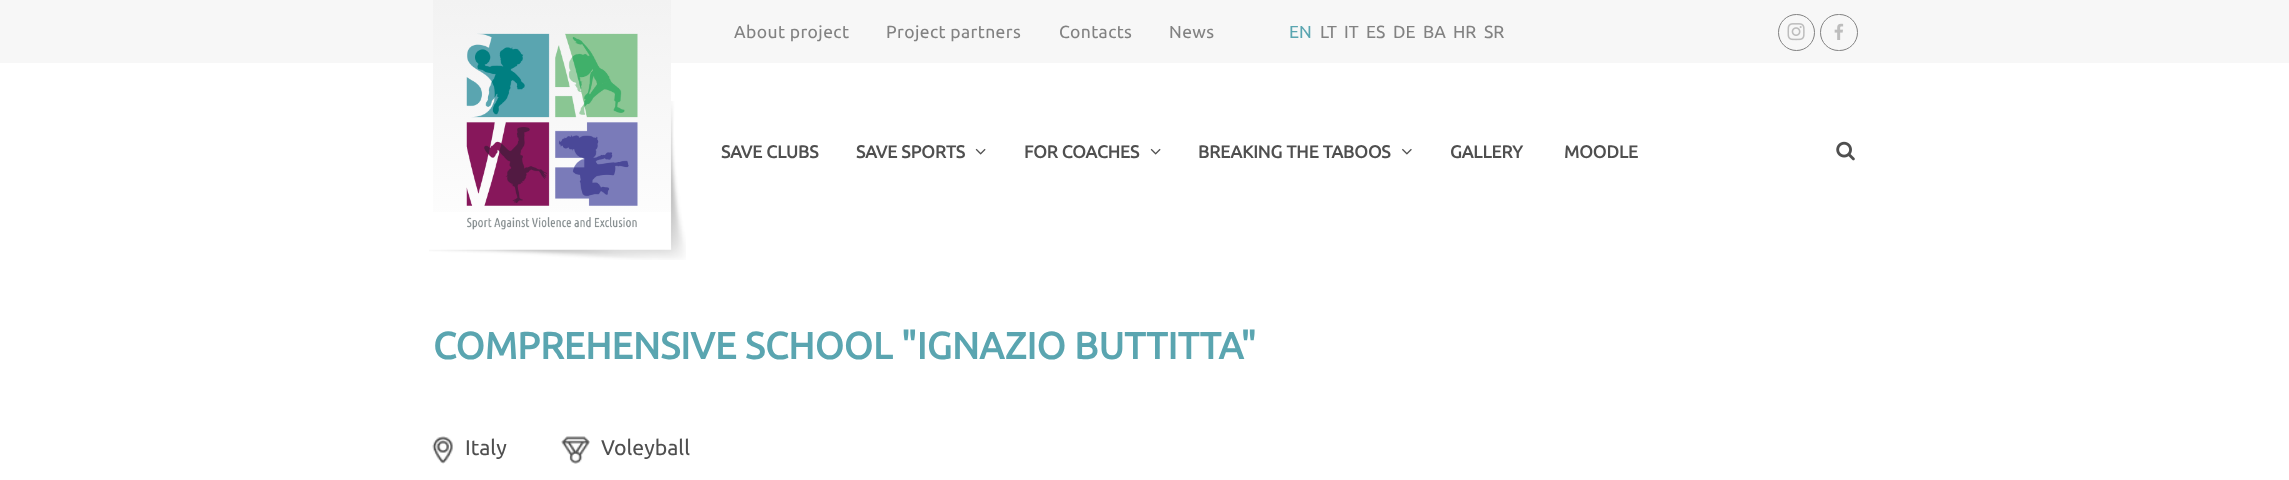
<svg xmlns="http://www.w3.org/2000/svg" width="2289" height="480">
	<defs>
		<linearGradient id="g1" gradientUnits="userSpaceOnUse" x1="552" y1="0" x2="552" y2="263"><stop offset="0" stop-color="#F2F2F2" /><stop offset="1" stop-color="#FFFFFF" /></linearGradient>
	</defs>
	<rect width="100%" height="100%" fill="#FFFFFF" />
	<rect x="0" y="0" width="2289" height="63" fill="#F7F7F7" />
	<rect x="433" y="0" width="238" height="212" fill="url(#g1)" />
	<image x="466" y="33" width="172" height="197" href="assets/img1.png" />
	<image x="429" y="101" width="257" height="159" href="assets/img2.png" />
	<g font-family="Ubuntu" font-size="17.5" letter-spacing="0.4" fill="#828282">
		<text x="734" y="38">About project</text>
		<text x="886" y="38">Project partners</text>
		<text x="1059" y="38">Contacts</text>
		<text x="1169" y="38">News</text>
	</g>
	<text x="1289" y="38" font-family="Ubuntu" font-size="17.5" fill="#5AA5B0">EN</text>
	<g font-family="Ubuntu" font-size="17.5" fill="#828282">
		<text x="1320" y="38">LT</text>
		<text x="1344" y="38">IT</text>
		<text x="1366" y="38">ES</text>
		<text x="1393" y="38">DE</text>
		<text x="1423" y="38">BA</text>
		<text x="1453" y="38">HR</text>
		<text x="1484" y="38">SR</text>
	</g>
	<circle cx="1796.5" cy="32.5" r="18" fill="none" stroke="#828282" />
	<rect x="1820.5" y="14.5" width="37" height="36" rx="18" fill="none" stroke="#828282" />
	<image x="1834" y="23" width="10" height="17" href="assets/img3.png" />
	<image x="1787" y="23" width="18" height="18" href="assets/img4.png" />
	<g font-family="Ubuntu" font-size="17.5" font-weight="700" fill="#4F4F4F">
		<text x="721" y="158">SAVE CLUBS</text>
		<text x="856" y="158">SAVE SPORTS</text>
	</g>
	<image x="975" y="148" width="11" height="7" href="assets/img5.png" />
	<text x="1024" y="158" font-family="Ubuntu" font-size="17.5" font-weight="700" fill="#4F4F4F">FOR COACHES</text>
	<image x="1150" y="148" width="11" height="7" href="assets/img5.png" />
	<text x="1198" y="158" font-family="Ubuntu" font-size="17.5" font-weight="700" fill="#4F4F4F">BREAKING THE TABOOS</text>
	<image x="1402" y="148" width="10" height="7" href="assets/img6.png" />
	<g font-family="Ubuntu" font-size="17.5" font-weight="700" fill="#4F4F4F">
		<text x="1450" y="158">GALLERY</text>
		<text x="1564" y="158">MOODLE</text>
	</g>
	<image x="1836" y="141" width="19" height="20" href="assets/img7.png" />
	<text x="433" y="359" font-family="Ubuntu" font-size="37.5" font-weight="700" fill="#5AA5B0">COMPREHENSIVE SCHOOL "IGNAZIO BUTTITTA"</text>
	<image x="432" y="436" width="21" height="28" href="assets/img8.png" />
	<text x="465" y="455" font-family="Ubuntu" font-size="21.25" fill="#4F4F4F">Italy</text>
	<image x="561" y="436" width="29" height="28" href="assets/img9.png" />
	<text x="601" y="455" font-family="Ubuntu" font-size="21.25" fill="#4F4F4F">Voleyball</text>
</svg>
